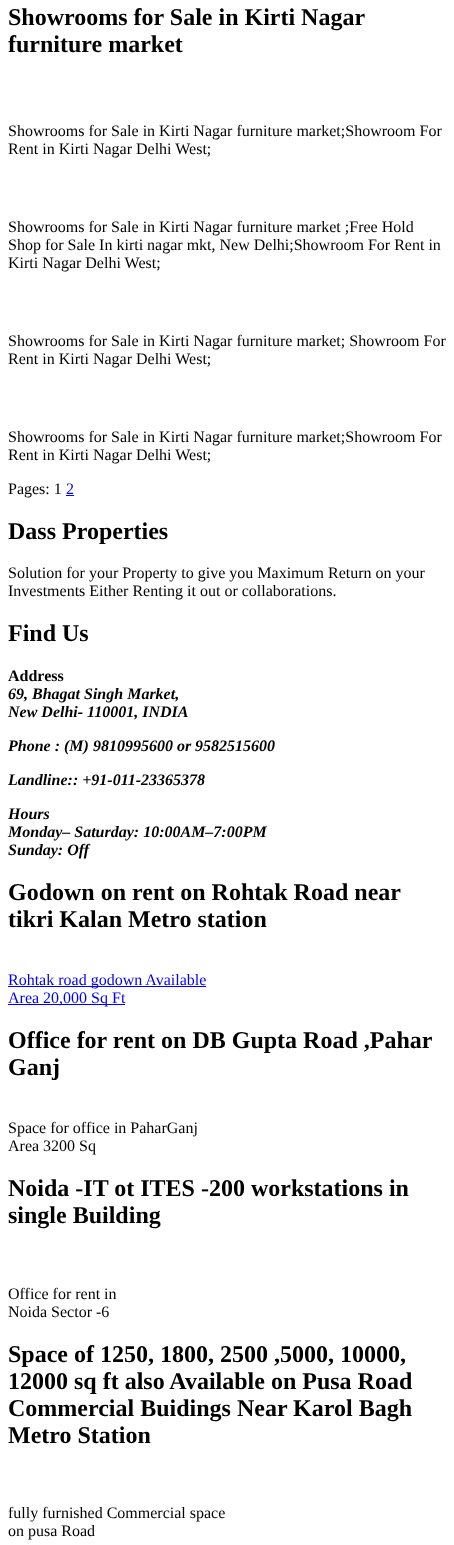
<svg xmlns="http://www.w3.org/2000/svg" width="454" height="1545">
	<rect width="100%" height="100%" fill="#FFFFFF" />
	<g font-family="Liberation Serif" font-size="24" font-weight="700" fill="#000000">
		<text x="8" y="25">Showrooms for Sale in Kirti Nagar</text>
		<text x="8" y="52">furniture market</text>
	</g>
	<g font-family="Liberation Serif" font-size="16" fill="#000000">
		<text x="8" y="136">Showrooms for Sale in Kirti Nagar furniture market;Showroom For</text>
		<text x="8" y="154">Rent in Kirti Nagar Delhi West;</text>
		<text x="8" y="232">Showrooms for Sale in Kirti Nagar furniture market ;Free Hold</text>
		<text x="8" y="250">Shop for Sale In kirti nagar mkt, New Delhi;Showroom For Rent in</text>
		<text x="8" y="268">Kirti Nagar Delhi West;</text>
		<text x="8" y="346">Showrooms for Sale in Kirti Nagar furniture market; Showroom For</text>
		<text x="8" y="364">Rent in Kirti Nagar Delhi West;</text>
		<text x="8" y="442">Showrooms for Sale in Kirti Nagar furniture market;Showroom For</text>
		<text x="8" y="460">Rent in Kirti Nagar Delhi West;</text>
		<text x="8" y="494">Pages: 1</text>
	</g>
	<text x="66" y="494" font-family="Liberation Serif" font-size="16" fill="#0000EE">2</text>
	<rect x="66" y="495" width="8" height="1" fill="#0000EE" />
	<text x="8" y="539" font-family="Liberation Serif" font-size="24" font-weight="700" fill="#000000">Dass Properties</text>
	<g font-family="Liberation Serif" font-size="16" fill="#000000">
		<text x="8" y="578">Solution for your Property to give you Maximum Return on your</text>
		<text x="8" y="596">Investments Either Renting it out or collaborations.</text>
	</g>
	<text x="8" y="641" font-family="Liberation Serif" font-size="24" font-weight="700" fill="#000000">Find Us</text>
	<text x="8" y="681" font-family="Liberation Serif" font-size="16" font-weight="700" fill="#000000">Address</text>
	<g font-family="Liberation Serif" font-size="16" font-weight="700" font-style="italic" fill="#000000">
		<text x="8" y="699">69, Bhagat Singh Market,</text>
		<text x="8" y="717">New Delhi- 110001, INDIA</text>
		<text x="8" y="751">Phone : (M) 9810995600 or 9582515600</text>
		<text x="8" y="785">Landline:: +91-011-23365378</text>
		<text x="8" y="819">Hours</text>
		<text x="8" y="837">Monday– Saturday: 10:00AM–7:00PM</text>
		<text x="8" y="855">Sunday: Off</text>
	</g>
	<g font-family="Liberation Serif" font-size="24" font-weight="700" fill="#000000">
		<text x="8" y="900">Godown on rent on Rohtak Road near</text>
		<text x="8" y="927">tikri Kalan Metro station</text>
	</g>
	<rect x="8" y="986" width="198" height="1" fill="#0000EE" />
	<text x="8" y="985" font-family="Liberation Serif" font-size="16" fill="#0000EE">Rohtak road godown Available</text>
	<rect x="8" y="1004" width="117" height="1" fill="#0000EE" />
	<text x="8" y="1003" font-family="Liberation Serif" font-size="16" fill="#0000EE">Area 20,000 Sq Ft</text>
	<g font-family="Liberation Serif" font-size="24" font-weight="700" fill="#000000">
		<text x="8" y="1048">Office for rent on DB Gupta Road ,Pahar</text>
		<text x="8" y="1075">Ganj</text>
	</g>
	<g font-family="Liberation Serif" font-size="16" fill="#000000">
		<text x="8" y="1133">Space for office in PaharGanj</text>
		<text x="8" y="1151">Area 3200 Sq</text>
	</g>
	<g font-family="Liberation Serif" font-size="24" font-weight="700" fill="#000000">
		<text x="8" y="1196">Noida -IT ot ITES -200 workstations in</text>
		<text x="8" y="1223">single Building</text>
	</g>
	<g font-family="Liberation Serif" font-size="16" fill="#000000">
		<text x="8" y="1299">Office for rent in</text>
		<text x="8" y="1317">Noida Sector -6</text>
	</g>
	<g font-family="Liberation Serif" font-size="24" font-weight="700" fill="#000000">
		<text x="8" y="1362">Space of 1250, 1800, 2500 ,5000, 10000,</text>
		<text x="8" y="1389">12000 sq ft also Available on Pusa Road</text>
		<text x="8" y="1416">Commercial Buidings Near Karol Bagh</text>
		<text x="8" y="1443">Metro Station</text>
	</g>
	<g font-family="Liberation Serif" font-size="16" fill="#000000">
		<text x="8" y="1518">fully furnished Commercial space</text>
		<text x="8" y="1536">on pusa Road</text>
	</g>
</svg>
